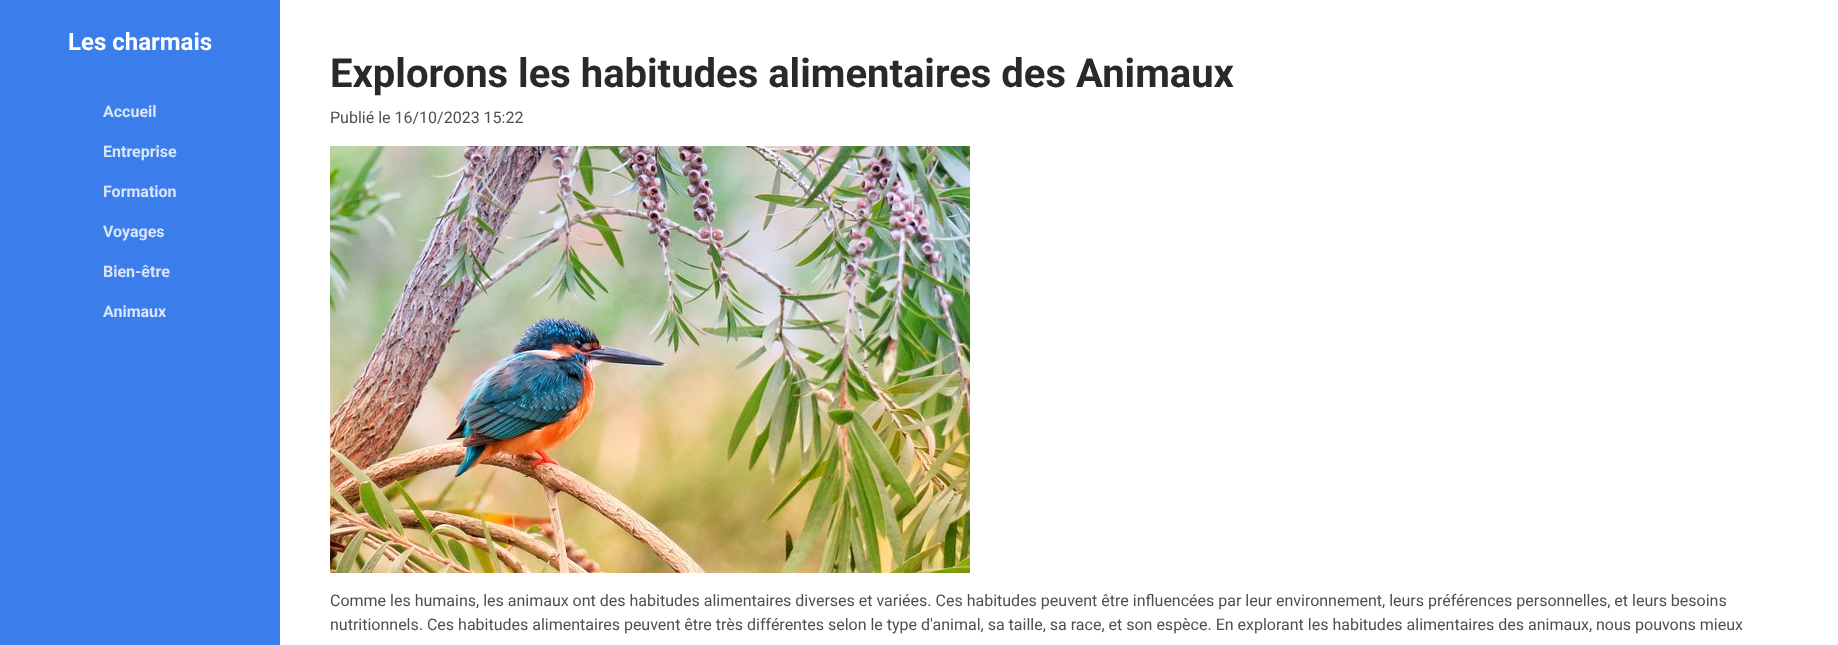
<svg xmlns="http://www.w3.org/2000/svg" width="1838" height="645">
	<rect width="100%" height="100%" fill="#FFFFFF" />
	<rect x="0" y="0" width="280" height="645" fill="#3B7EEB" />
	<text x="68" y="50" font-family="Roboto" font-size="24" font-weight="700" fill="#FFFFFF">Les charmais</text>
	<g font-family="Roboto" font-size="16" font-weight="700" fill="#D8E5FB">
		<text x="103" y="117">Accueil</text>
		<text x="103" y="157">Entreprise</text>
		<text x="103" y="197">Formation</text>
		<text x="103" y="237">Voyages</text>
		<text x="103" y="277">Bien-être</text>
		<text x="103" y="317">Animaux</text>
	</g>
	<text x="330" y="87" font-family="Roboto" font-size="40" font-weight="700" fill="#292929">Explorons les habitudes alimentaires des Animaux</text>
	<text x="330" y="123" font-family="Roboto" font-size="16" fill="#4F4F4F">Publié le 16/10/2023 15:22</text>
	<image x="330" y="146" width="640" height="427" href="assets/img1.png" />
	<g font-family="Roboto" font-size="16" fill="#4F4F4F">
		<text x="330" y="606">Comme les humains, les animaux ont des habitudes alimentaires diverses et variées. Ces habitudes peuvent être influencées par leur environnement, leurs préférences personnelles, et leurs besoins</text>
		<text x="330" y="630">nutritionnels. Ces habitudes alimentaires peuvent être très différentes selon le type d'animal, sa taille, sa race, et son espèce. En explorant les habitudes alimentaires des animaux, nous pouvons mieux</text>
	</g>
</svg>
